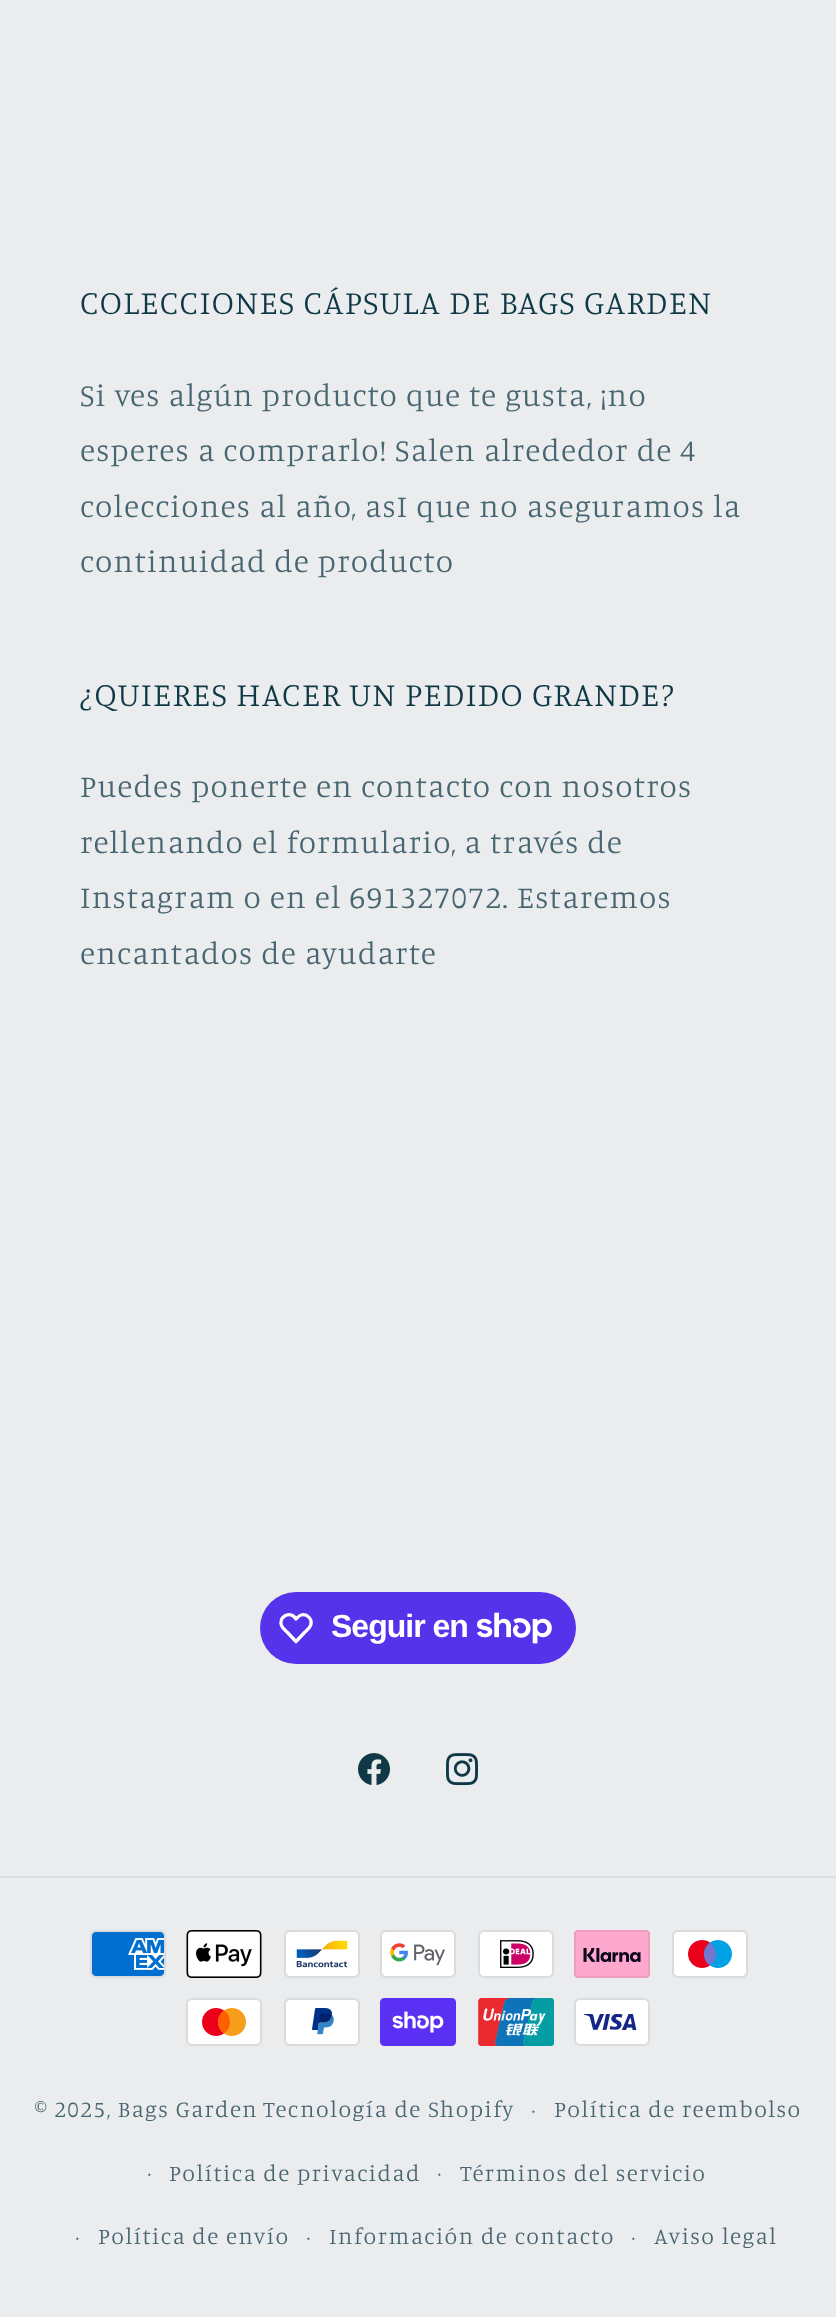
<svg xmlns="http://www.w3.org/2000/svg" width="836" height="2317">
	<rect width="100%" height="100%" fill="#EBECED" />
	<text x="80" y="314" font-family="Manuale" font-size="33.6" font-weight="300" letter-spacing="1.25" fill="#103948">COLECCIONES CÁPSULA DE BAGS GARDEN</text>
	<g font-family="Manuale" font-size="31.5" font-weight="300" letter-spacing="1.25" fill="#476671">
		<text x="80" y="406">Si ves algún producto que te gusta, ¡no</text>
		<text x="80" y="461">esperes a comprarlo! Salen alrededor de 4</text>
		<text x="80" y="517">colecciones al año, asI que no aseguramos la</text>
		<text x="80" y="572">continuidad de producto</text>
	</g>
	<text x="80" y="706" font-family="Manuale" font-size="33.6" font-weight="300" letter-spacing="1.25" fill="#103948">¿QUIERES HACER UN PEDIDO GRANDE?</text>
	<g font-family="Manuale" font-size="31.5" font-weight="300" letter-spacing="1.25" fill="#476671">
		<text x="80" y="797">Puedes ponerte en contacto con nosotros</text>
		<text x="80" y="853">rellenando el formulario, a través de</text>
		<text x="80" y="908">Instagram o en el 691327072. Estaremos</text>
		<text x="80" y="964">encantados de ayudarte</text>
	</g>
	<rect x="260" y="1592" width="316" height="72" rx="36" fill="#5433EB" />
	<path d="M294.5 1617L296 1619C297.5 1617.5 299 1615.5 301 1615C307 1613 313 1619.5 310.5 1625.5C309.5 1628.5 306.5 1630.5 304.5 1632.5L296 1641.5L287.5 1632.5C285.5 1630.5 282.5 1628.5 281.5 1625.5C278.5 1617.5 288.5 1611 294.5 1617Z" fill="none" stroke="#FFFFFF" stroke-width="3.3" stroke-linejoin="round" />
	<text x="331" y="1637" font-family="Liberation Sans" font-size="32" font-weight="700" letter-spacing="-1" fill="#FFFFFF">Seguir en</text>
	<image x="477" y="1612" width="75" height="32" href="assets/img1.png" />
	<image x="358" y="1753" width="32" height="32" href="assets/img2.png" />
	<image x="446" y="1753" width="32" height="33" href="assets/img3.png" />
	<rect x="0" y="1876" width="836" height="2" fill="#D9DEE0" />
	<image x="90" y="1930" width="76" height="48" href="assets/img4.png" />
	<image x="186" y="1930" width="76" height="48" href="assets/img5.png" />
	<image x="284" y="1930" width="76" height="48" href="assets/img6.png" />
	<image x="380" y="1930" width="76" height="48" href="assets/img7.png" />
	<image x="478" y="1930" width="76" height="48" href="assets/img8.png" />
	<image x="574" y="1930" width="76" height="48" href="assets/img9.png" />
	<image x="672" y="1930" width="76" height="48" href="assets/img10.png" />
	<image x="186" y="1998" width="76" height="48" href="assets/img11.png" />
	<image x="284" y="1998" width="76" height="48" href="assets/img12.png" />
	<image x="380" y="1998" width="76" height="48" href="assets/img13.png" />
	<image x="478" y="1998" width="76" height="48" href="assets/img14.png" />
	<image x="574" y="1998" width="76" height="48" href="assets/img15.png" />
	<text x="35" y="2117" font-family="Manuale" font-size="23.1" font-weight="300" letter-spacing="1.5" fill="#476671">© 2025, Bags Garden</text>
	<text x="531" y="2117" font-family="Manuale" font-size="21" font-weight="300" letter-spacing="1.5" fill="#476671">·</text>
	<text x="554" y="2117" font-family="Manuale" font-size="23.1" font-weight="300" letter-spacing="1.5" fill="#476671">Política de reembolso</text>
	<text x="147" y="2180" font-family="Manuale" font-size="21" font-weight="300" letter-spacing="1.5" fill="#476671">·</text>
	<text x="169" y="2181" font-family="Manuale" font-size="23.1" font-weight="300" letter-spacing="1.5" fill="#476671">Política de privacidad</text>
	<text x="437" y="2180" font-family="Manuale" font-size="21" font-weight="300" letter-spacing="1.5" fill="#476671">·</text>
	<text x="460" y="2181" font-family="Manuale" font-size="23.1" font-weight="300" letter-spacing="1.5" fill="#476671">Términos del servicio</text>
	<text x="75" y="2244" font-family="Manuale" font-size="21" font-weight="300" letter-spacing="1.5" fill="#476671">·</text>
	<text x="98" y="2244" font-family="Manuale" font-size="23.1" font-weight="300" letter-spacing="1.5" fill="#476671">Política de envío</text>
	<text x="306" y="2244" font-family="Manuale" font-size="21" font-weight="300" letter-spacing="1.5" fill="#476671">·</text>
	<text x="329" y="2244" font-family="Manuale" font-size="23.1" font-weight="300" letter-spacing="1.5" fill="#476671">Información de contacto</text>
	<text x="631" y="2244" font-family="Manuale" font-size="21" font-weight="300" letter-spacing="1.5" fill="#476671">·</text>
	<g font-family="Manuale" font-size="23.1" font-weight="300" letter-spacing="1.5" fill="#476671">
		<text x="654" y="2244">Aviso legal</text>
		<text x="263" y="2117">Tecnología de Shopify</text>
	</g>
</svg>
